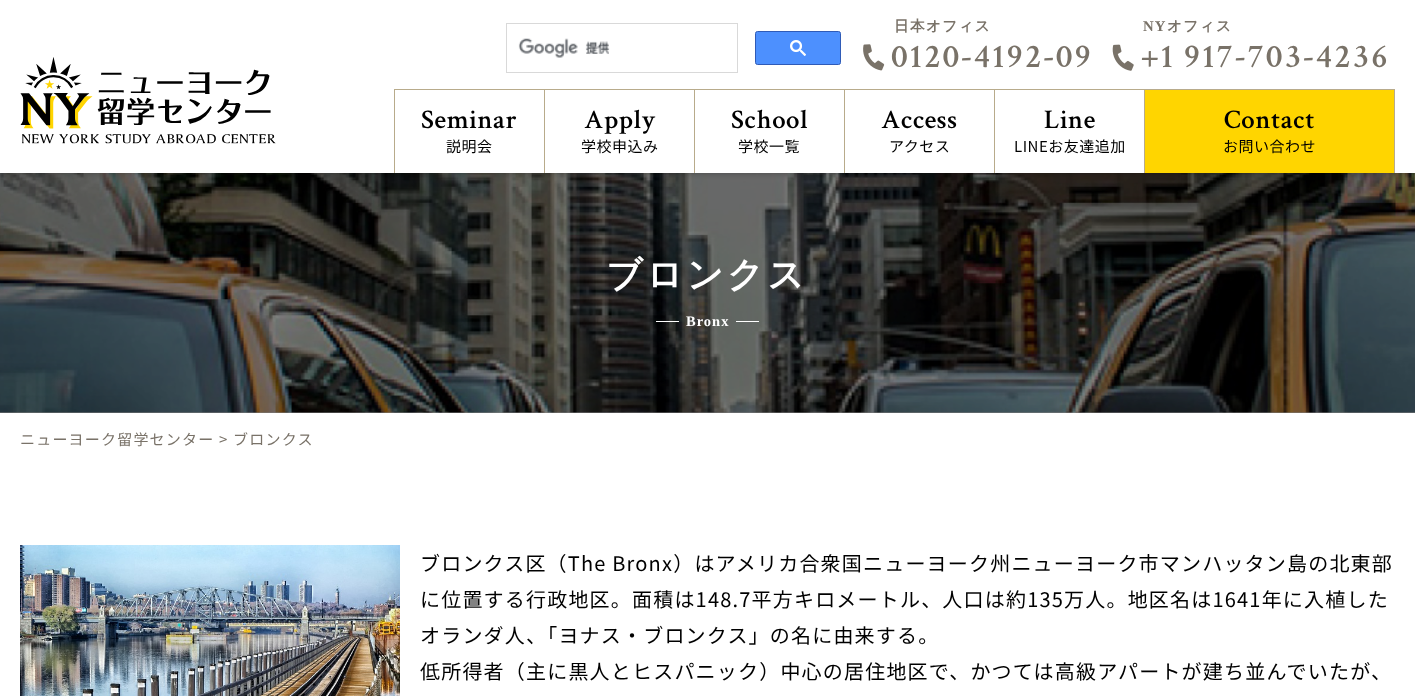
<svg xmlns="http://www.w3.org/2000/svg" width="1415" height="696">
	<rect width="100%" height="100%" fill="#FFFFFF" />
	<rect x="0" y="412" width="1415" height="1" fill="#808080" />
	<image x="0" y="173" width="1415" height="240" href="assets/img6.png" />
	<rect x="0" y="0" width="1415" height="173" fill="#000000" fill-opacity="0.3" filter="blur(3px)" />
	<rect x="0" y="0" width="1415" height="173" fill="#FFFFFF" />
	<image x="20" y="57" width="256" height="87" href="assets/img1.png" />
	<rect x="506.5" y="23.5" width="231" height="49" fill="none" stroke="#D9D9D9" />
	<image x="518" y="38" width="92" height="20" href="assets/img2.png" />
	<rect x="755.5" y="31.5" width="85" height="33" rx="2" fill="#4D90FE" stroke="#2F5BB7" />
	<image x="790" y="40" width="16" height="16" href="assets/img3.png" />
	<text x="894" y="31" font-family="WenQuanYi Zen Hei" font-size="14.75" font-weight="700" letter-spacing="1.2" fill="#797268">日本オフィス</text>
	<image x="863" y="44" width="22" height="27" href="assets/img4.png" />
	<text x="891" y="67" font-family="Crimson Text" font-size="34" font-weight="600" letter-spacing="1.75" fill="#797268">0120-4192-09</text>
	<text x="1143" y="31" font-family="Liberation Serif" font-size="14.75" font-weight="700" letter-spacing="1.2" fill="#797268">NY</text>
	<text x="1167" y="31" font-family="WenQuanYi Zen Hei" font-size="14.75" font-weight="700" letter-spacing="1.2" fill="#797268">オフィス</text>
	<image x="1112" y="44" width="22" height="27" href="assets/img5.png" />
	<text x="1141" y="67" font-family="Crimson Text" font-size="34" font-weight="600" letter-spacing="1.75" fill="#797268">+1 917-703-4236</text>
	<rect x="394" y="89" width="1001" height="1" fill="#B8AB8B" />
	<rect x="1394" y="89" width="1" height="84" fill="#B8AB8B" />
	<rect x="394" y="90" width="1" height="83" fill="#B8AB8B" />
	<text x="421" y="128" font-family="Crimson Text" font-size="27" font-weight="600" letter-spacing="0.5" fill="#000000">Seminar</text>
	<text x="446" y="152" font-family="Noto Sans JP" font-size="15" letter-spacing="0.5" fill="#000000">説明会</text>
	<rect x="544" y="90" width="1" height="83" fill="#B8AB8B" />
	<text x="584" y="128" font-family="Crimson Text" font-size="27" font-weight="600" letter-spacing="0.5" fill="#000000">Apply</text>
	<text x="581" y="152" font-family="Noto Sans JP" font-size="15" letter-spacing="0.5" fill="#000000">学校申込み</text>
	<rect x="694" y="90" width="1" height="83" fill="#B8AB8B" />
	<text x="731" y="128" font-family="Crimson Text" font-size="27" font-weight="600" letter-spacing="0.5" fill="#000000">School</text>
	<text x="738" y="152" font-family="Noto Sans JP" font-size="15" letter-spacing="0.5" fill="#000000">学校一覧</text>
	<rect x="844" y="90" width="1" height="83" fill="#B8AB8B" />
	<text x="881" y="128" font-family="Crimson Text" font-size="27" font-weight="600" letter-spacing="0.5" fill="#000000">Access</text>
	<text x="889" y="152" font-family="Noto Sans JP" font-size="15" letter-spacing="0.5" fill="#000000">アクセス</text>
	<rect x="994" y="90" width="1" height="83" fill="#B8AB8B" />
	<text x="1044" y="128" font-family="Crimson Text" font-size="27" font-weight="600" letter-spacing="0.5" fill="#000000">Line</text>
	<text x="1014" y="152" font-family="Noto Sans JP" font-size="15" letter-spacing="0.5" fill="#000000">LINEお友達追加</text>
	<rect x="1145" y="90" width="249" height="83" fill="#FFD500" />
	<rect x="1144" y="90" width="1" height="83" fill="#B8AB8B" />
	<text x="1224" y="128" font-family="Crimson Text" font-size="27" font-weight="600" letter-spacing="0.5" fill="#000000">Contact</text>
	<text x="1223" y="152" font-family="Noto Sans JP" font-size="15" letter-spacing="0.5" fill="#000000">お問い合わせ</text>
	<text x="606" y="287" font-family="WenQuanYi Zen Hei" font-size="36" font-weight="700" letter-spacing="3.5" fill="#FFFFFF">ブロンクス</text>
	<rect x="656" y="321" width="23" height="1" fill="#FFFFFF" />
	<text x="686" y="326" font-family="Liberation Serif" font-size="14.5" font-weight="700" letter-spacing="1" fill="#FFFFFF">Bronx</text>
	<rect x="736" y="321" width="23" height="1" fill="#FFFFFF" />
	<text x="20" y="445" font-family="Noto Sans JP" font-size="15" letter-spacing="1.2" fill="#797268">ニューヨーク留学センター &gt; ブロンクス</text>
	<image x="20" y="545" width="380" height="151" href="assets/img7.png" />
	<g font-family="Noto Sans JP" font-size="20" letter-spacing="1.2" fill="#000000">
		<text x="420" y="571">ブロンクス区（The Bronx）はアメリカ合衆国ニューヨーク州ニューヨーク市マンハッタン島の北東部</text>
		<text x="420" y="607">に位置する行政地区。面積は148.7平方キロメートル、人口は約135万人。地区名は1641年に入植した</text>
		<text x="420" y="643">オランダ人、「ヨナス・ブロンクス」の名に由来する。</text>
		<text x="420" y="679">低所得者（主に黒人とヒスパニック）中心の居住地区で、かつては高級アパートが建ち並んでいたが、</text>
	</g>
</svg>
